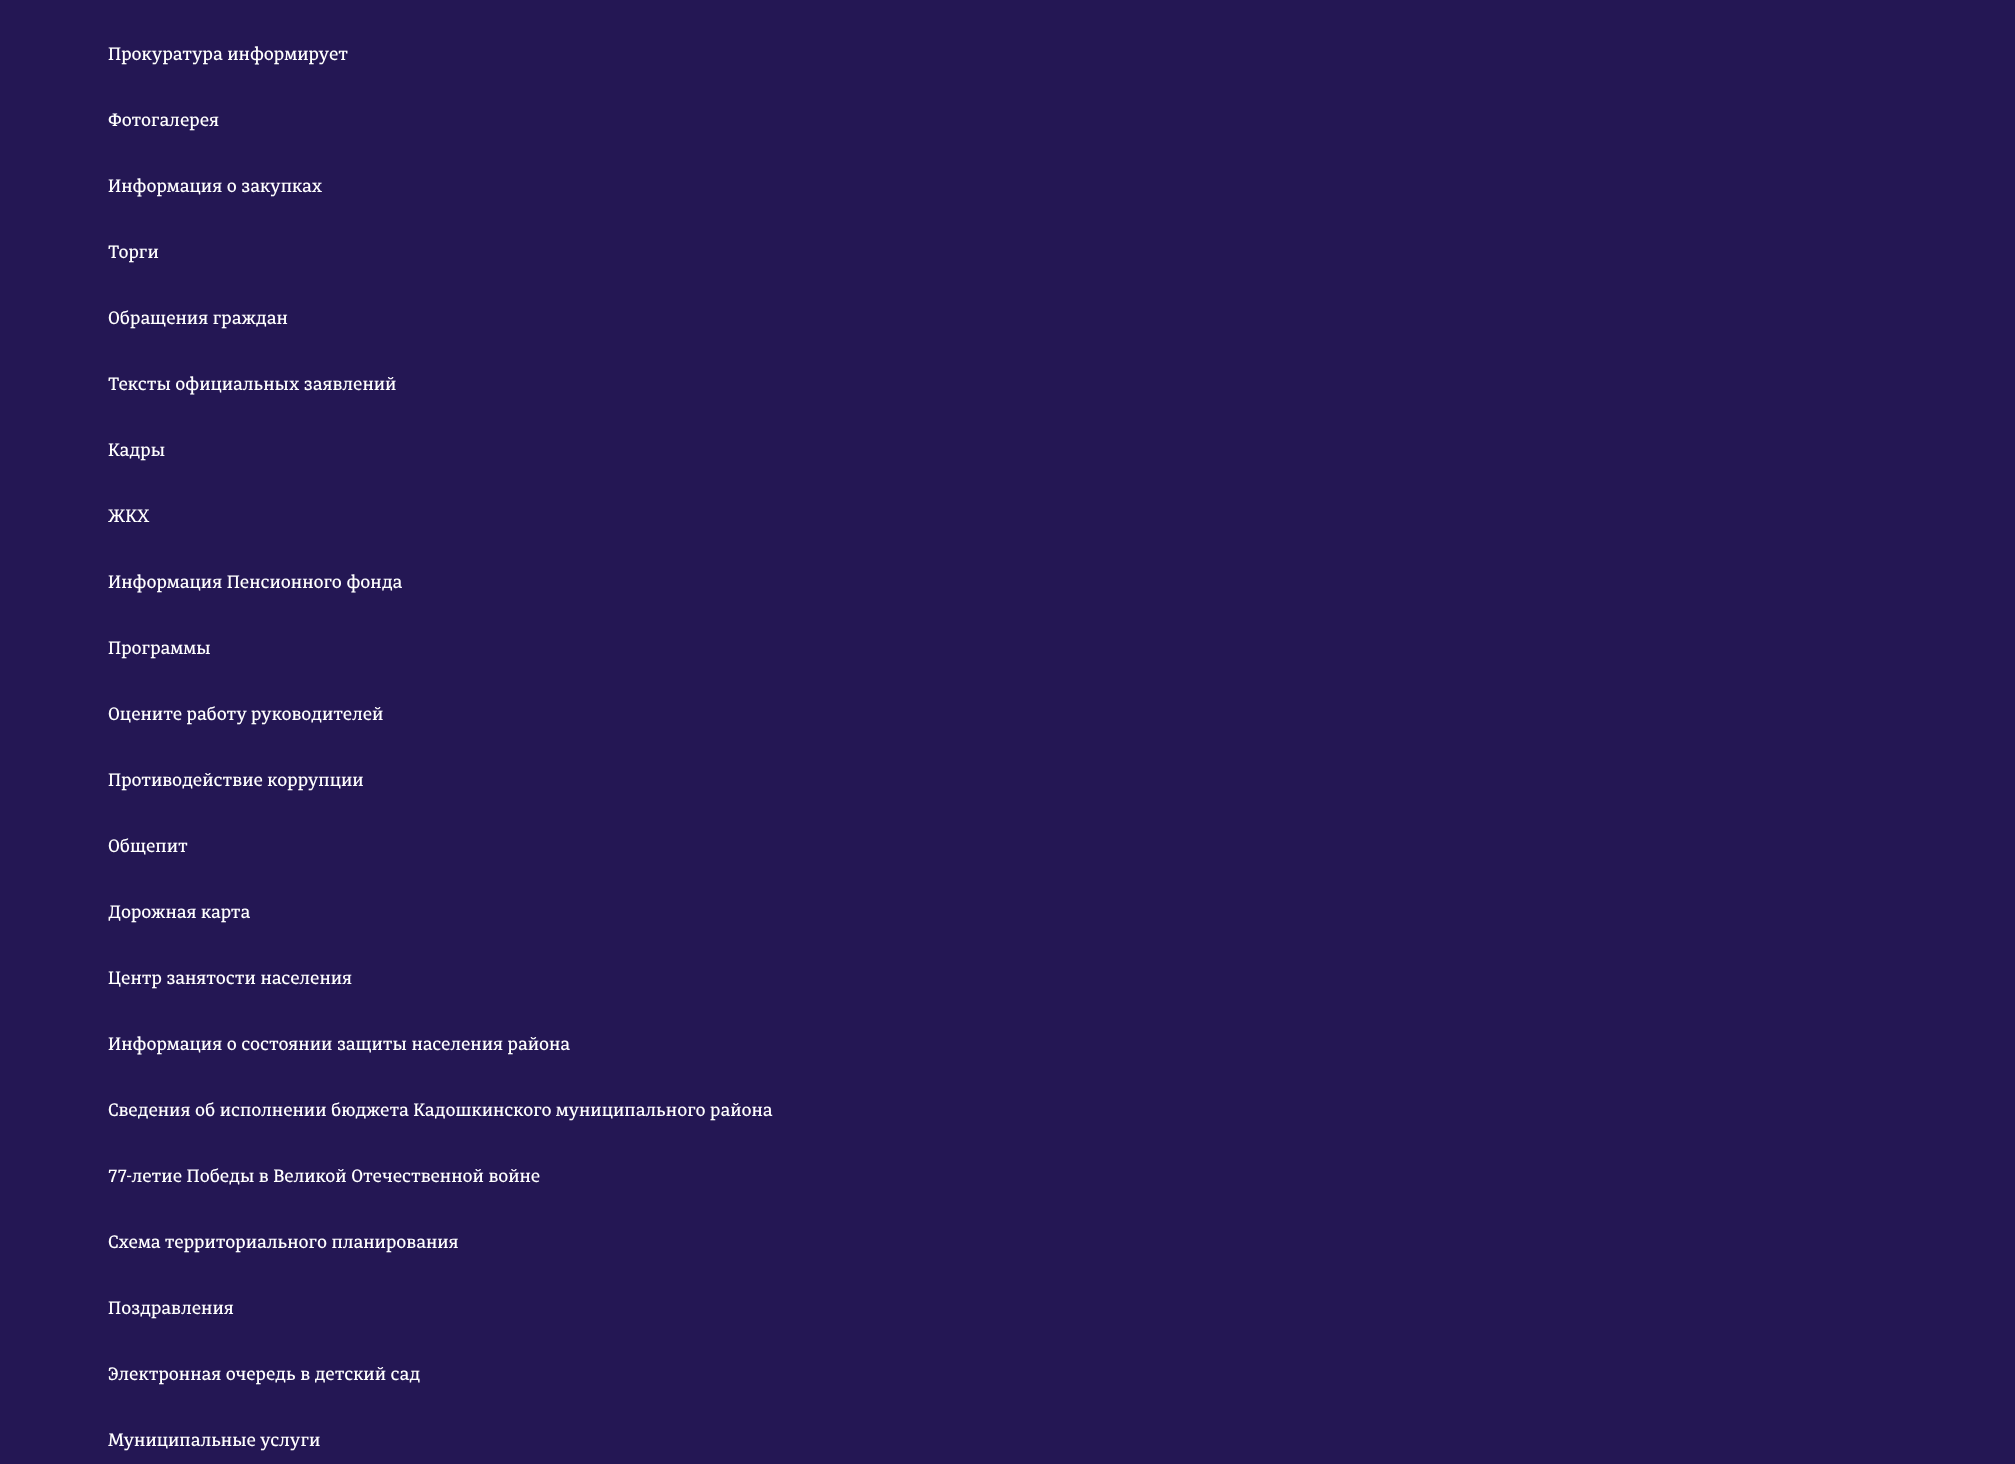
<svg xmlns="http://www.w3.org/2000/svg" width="2015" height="1464">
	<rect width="100%" height="100%" fill="#241754" />
	<g font-family="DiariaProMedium" font-size="18" font-weight="500" fill="#FFFFFF">
		<text x="108" y="60">Прокуратура информирует</text>
		<text x="108" y="126">Фотогалерея</text>
		<text x="108" y="192">Информация о закупках</text>
		<text x="108" y="258">Торги</text>
		<text x="108" y="324">Обращения граждан</text>
		<text x="108" y="390">Тексты официальных заявлений</text>
		<text x="108" y="456">Кадры</text>
		<text x="108" y="522">ЖКХ</text>
		<text x="108" y="588">Информация Пенсионного фонда</text>
		<text x="108" y="654">Программы</text>
		<text x="108" y="720">Оцените работу руководителей</text>
		<text x="108" y="786">Противодействие коррупции</text>
		<text x="108" y="852">Общепит</text>
		<text x="108" y="918">Дорожная карта</text>
		<text x="108" y="984">Центр занятости населения</text>
		<text x="108" y="1050">Информация о состоянии защиты населения района</text>
		<text x="108" y="1116">Сведения об исполнении бюджета Кадошкинского муниципального района</text>
		<text x="108" y="1182">77-летие Победы в Великой Отечественной войне</text>
		<text x="108" y="1248">Схема территориального планирования</text>
		<text x="108" y="1314">Поздравления</text>
		<text x="108" y="1380">Электронная очередь в детский сад</text>
		<text x="108" y="1446">Муниципальные услуги</text>
	</g>
</svg>
